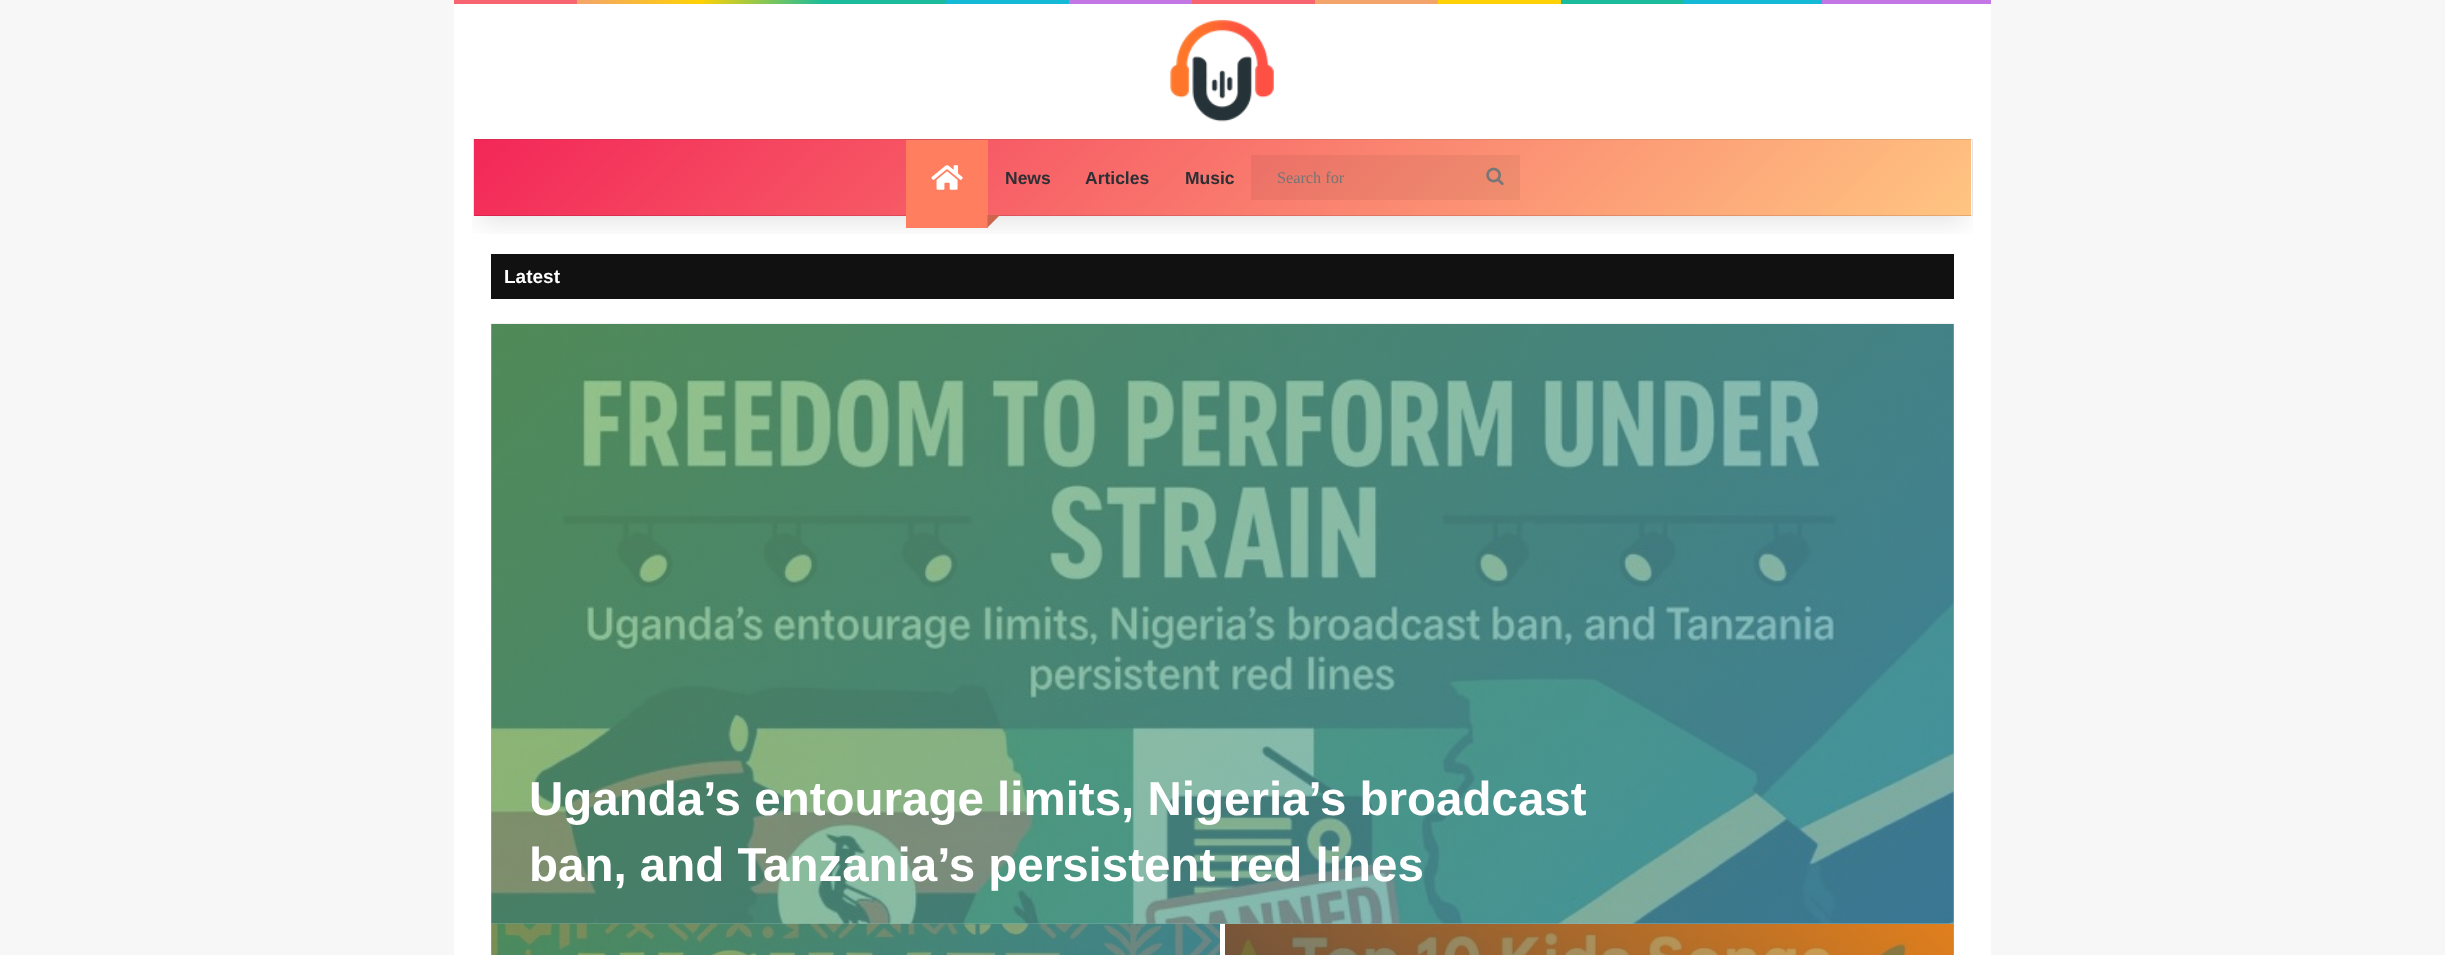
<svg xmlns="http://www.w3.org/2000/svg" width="2445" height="955">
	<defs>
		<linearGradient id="g1" gradientUnits="userSpaceOnUse" x1="454" y1="1.9" x2="1991" y2="1.9"><stop offset="0" stop-color="#F76570" /><stop offset="0.08" stop-color="#F76570" /><stop offset="0.08" stop-color="#F3A46B" /><stop offset="0.16" stop-color="#FFD205" /><stop offset="0.24" stop-color="#1BBC9B" /><stop offset="0.32" stop-color="#1BBC9B" /><stop offset="0.32" stop-color="#14B9D5" /><stop offset="0.4" stop-color="#14B9D5" /><stop offset="0.4" stop-color="#C377E4" /><stop offset="0.48" stop-color="#C377E4" /><stop offset="0.48" stop-color="#F76570" /><stop offset="0.56" stop-color="#F76570" /><stop offset="0.56" stop-color="#F3A46B" /><stop offset="0.64" stop-color="#F3A46B" /><stop offset="0.64" stop-color="#FFD205" /><stop offset="0.72" stop-color="#FFD205" /><stop offset="0.72" stop-color="#1BBC9B" /><stop offset="0.8" stop-color="#1BBC9B" /><stop offset="0.8" stop-color="#14B9D5" /><stop offset="0.89" stop-color="#14B9D5" /><stop offset="0.89" stop-color="#C377E4" /><stop offset="1" stop-color="#C377E4" /></linearGradient>
		<clipPath id="clip1"><rect x="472" y="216" width="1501" height="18" /></clipPath>
		<linearGradient id="g2" gradientUnits="userSpaceOnUse" x1="829" y1="-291" x2="1616" y2="496"><stop offset="0" stop-color="#F32758" /><stop offset="1" stop-color="#FFC581" /></linearGradient>
		<linearGradient id="g3" gradientUnits="userSpaceOnUse" x1="829" y1="-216" x2="1616" y2="571"><stop offset="0" stop-color="#F32758" /><stop offset="1" stop-color="#FFC581" /></linearGradient>
		<linearGradient id="g4" gradientUnits="userSpaceOnUse" x1="829" y1="-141" x2="1616" y2="646"><stop offset="0" stop-color="#F32758" /><stop offset="1" stop-color="#FFC581" /></linearGradient>
		<linearGradient id="g5" gradientUnits="userSpaceOnUse" x1="707" y1="108" x2="1738" y2="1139"><stop offset="0" stop-color="#67B26F" stop-opacity="0.7" /><stop offset="1" stop-color="#4CA2CD" stop-opacity="0.7" /></linearGradient>
		<linearGradient id="g6" gradientUnits="userSpaceOnUse" x1="595" y1="820" x2="1116" y2="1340"><stop offset="0" stop-color="#67B26F" stop-opacity="0.7" /><stop offset="1" stop-color="#4CA2CD" stop-opacity="0.7" /></linearGradient>
		<linearGradient id="g7" gradientUnits="userSpaceOnUse" x1="1850" y1="820" x2="1329" y2="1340"><stop offset="0" stop-color="#D38312" stop-opacity="0.7" /><stop offset="1" stop-color="#002F4B" stop-opacity="0.7" /></linearGradient>
	</defs>
	<rect width="100%" height="100%" fill="#F7F7F7" />
	<rect x="454" y="4" width="1537" height="951" fill="#FFFFFF" />
	<rect x="454" y="0" width="1537" height="4" fill="url(#g1)" />
	<rect x="491" y="254" width="1463" height="45" fill="#111111" />
	<g clip-path="url(#clip1)">
		<rect x="479" y="60" width="1487" height="163" fill="#000000" fill-opacity="0.1" filter="blur(12.5px)" />
	</g>
	<image x="1169" y="19" width="105" height="103" href="assets/img1.png" />
	<rect x="474" y="139" width="1497" height="1" fill="url(#g2)" />
	<rect x="474" y="140" width="1497" height="75" fill="url(#g3)" />
	<rect x="474" y="215" width="1497" height="1" fill="url(#g4)" />
	<rect x="473.5" y="139.5" width="1499" height="76" fill="none" stroke="#000000" stroke-opacity="0.1" />
	<rect x="906" y="140" width="82" height="88" fill="#FF7E5F" />
	<image x="931" y="165" width="32" height="25" href="assets/img2.png" />
	<path d="M987.5 215H1000L987.5 227.5Z" fill="#CC654C" />
	<g font-family="Liberation Sans" font-size="17.5" font-weight="700" fill="#2C2F34">
		<text x="1005" y="184">News</text>
		<text x="1085" y="184">Articles</text>
		<text x="1185" y="184">Music</text>
	</g>
	<rect x="1251" y="155" width="269" height="45" fill="#000000" fill-opacity="0.05" />
	<text x="1277" y="183" font-family="Liberation Serif" font-size="16.25" fill="#757575">Search for</text>
	<image x="1486" y="167" width="18" height="19" href="assets/img3.png" />
	<text x="504" y="283" font-family="Liberation Sans" font-size="19" font-weight="700" fill="#FFFFFF">Latest</text>
	<image x="491" y="323" width="1463" height="601" href="assets/img4.png" />
	<rect x="491" y="324" width="1463" height="600" fill="url(#g5)" />
	<g font-family="Liberation Sans" font-size="47.5" font-weight="700" fill="#FFFFFF">
		<text x="529" y="815">Uganda’s entourage limits, Nigeria’s broadcast</text>
		<text x="529" y="881">ban, and Tanzania’s persistent red lines</text>
	</g>
	<image x="491" y="923" width="729" height="32" href="assets/img5.png" />
	<rect x="491" y="924" width="729" height="31" fill="url(#g6)" />
	<image x="1225" y="923" width="729" height="32" href="assets/img6.png" />
	<rect x="1225" y="924" width="729" height="31" fill="url(#g7)" />
</svg>
